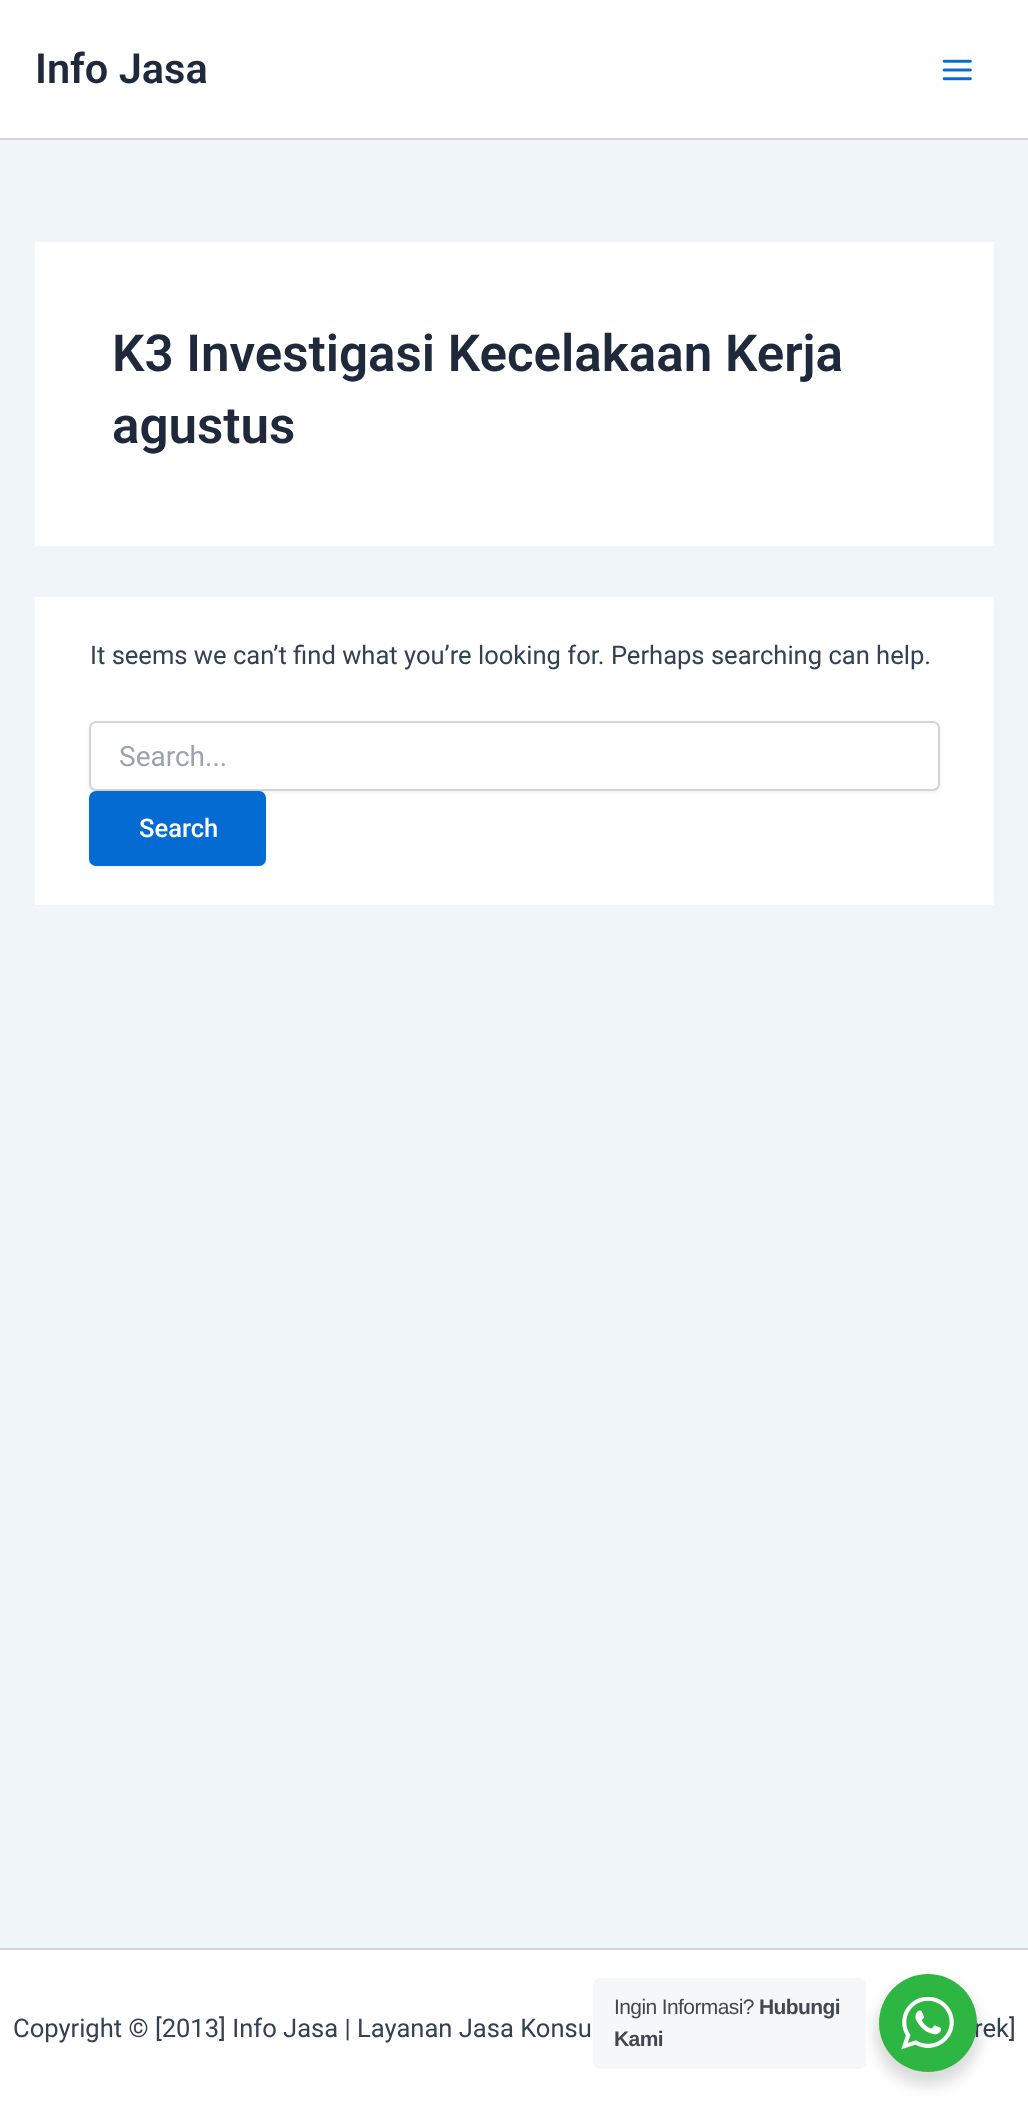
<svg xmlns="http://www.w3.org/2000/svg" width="1028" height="2124">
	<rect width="100%" height="100%" fill="#F0F5FA" />
	<rect x="0" y="0" width="1028" height="138" fill="#FFFFFF" />
	<rect x="0" y="138" width="1028" height="2" fill="#D1D5DB" />
	<text x="35" y="83" font-family="Roboto" font-size="41.5" font-weight="600" fill="#1E293B">Info Jasa</text>
	<image x="942" y="59" width="30" height="22" href="assets/img1.png" />
	<rect x="35" y="242" width="959" height="304" fill="#FFFFFF" />
	<g font-family="Roboto" font-size="51.1" font-weight="600" fill="#1E293B">
		<text x="112" y="371">K3 Investigasi Kecelakaan Kerja</text>
		<text x="112" y="443">agustus</text>
	</g>
	<rect x="35" y="597" width="959" height="308" fill="#FFFFFF" />
	<text x="90" y="664" font-family="Roboto" font-size="25.55" fill="#334155">It seems we can’t find what you’re looking for. Perhaps searching can help.</text>
	<rect x="89" y="723" width="851" height="70" rx="7" fill="#000000" fill-opacity="0.05" filter="blur(2px)" />
	<rect x="90" y="722" width="849" height="68" rx="6" fill="#FFFFFF" stroke="#D1D5DB" stroke-width="2" />
	<text x="119" y="766" font-family="Roboto" font-size="28" fill="#9CA3AF">Search...</text>
	<rect x="89" y="793" width="177" height="75" rx="7" fill="#000000" fill-opacity="0.05" filter="blur(2px)" />
	<rect x="89" y="791" width="177" height="75" rx="7" fill="#046BD2" />
	<text x="139" y="837" font-family="Roboto" font-size="25.55" font-weight="500" fill="#FFFFFF">Search</text>
	<rect x="0" y="1950" width="1028" height="174" fill="#FFFFFF" />
	<rect x="0" y="1948" width="1028" height="2" fill="#D1D5DB" />
	<g font-family="Roboto" font-size="25.55" fill="#334155">
		<text x="13" y="2037">Copyright © [2013] Info Jasa | Layanan Jasa Konsu</text>
		<text x="974" y="2037">rek]</text>
	</g>
	<rect x="875" y="1981" width="105" height="105" rx="52.5" fill="#000000" fill-opacity="0.14" filter="blur(7px)" />
	<rect x="593" y="1978" width="273" height="91" rx="7" fill="#F5F7F9" />
	<text x="614" y="2014" font-family="Liberation Sans" font-size="21" letter-spacing="-0.6" fill="#43474E">Ingin Informasi?</text>
	<g font-family="Liberation Sans" font-size="21" font-weight="700" letter-spacing="-0.6" fill="#43474E">
		<text x="759" y="2014">Hubungi</text>
		<text x="614" y="2046">Kami</text>
	</g>
	<circle cx="928" cy="2023" r="49" fill="#2DB742" />
	<image x="901" y="1997" width="53" height="52" href="assets/img2.png" />
</svg>
